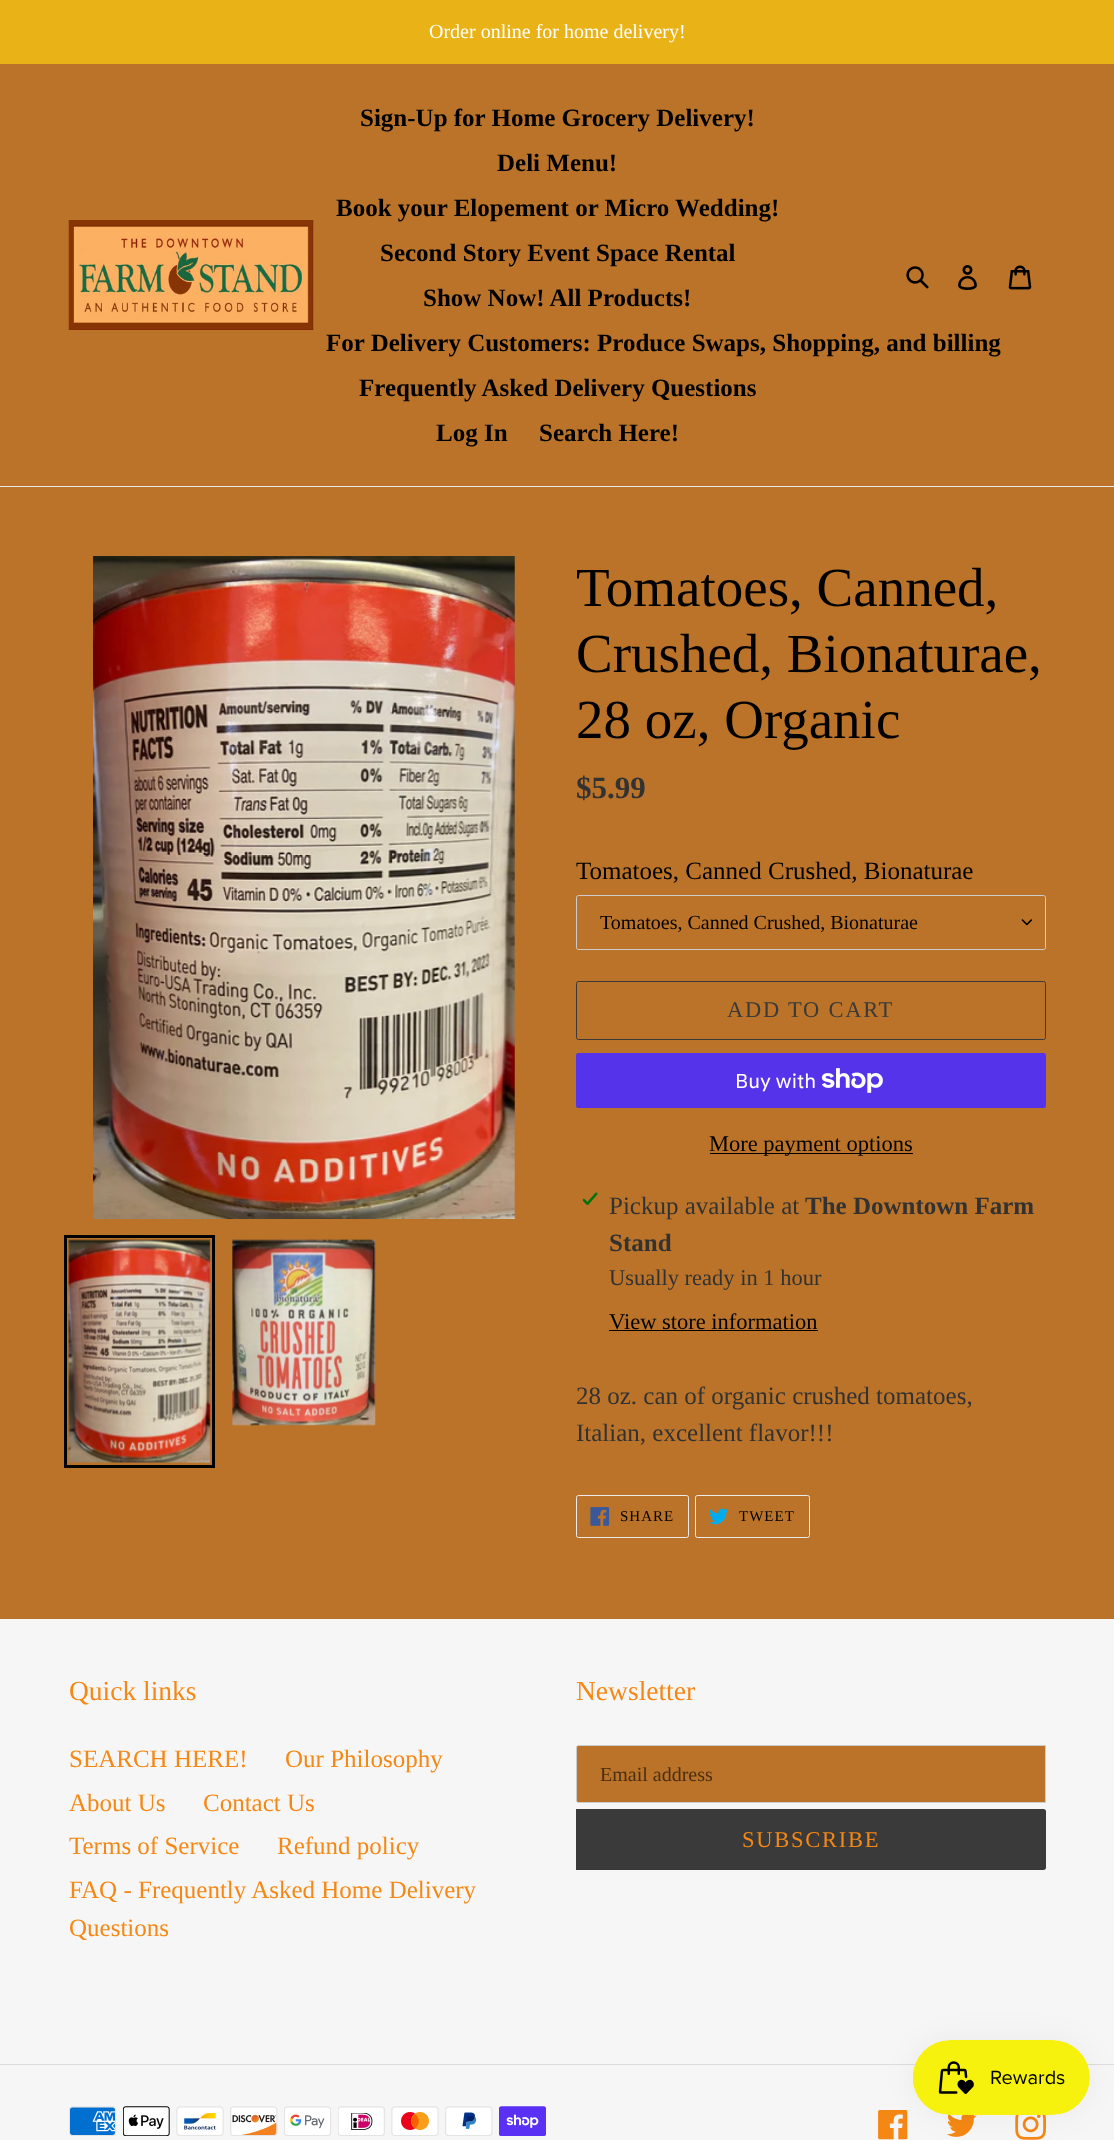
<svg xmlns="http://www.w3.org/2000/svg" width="1114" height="2140">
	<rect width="100%" height="100%" fill="#BA7329" />
	<rect x="0" y="0" width="1114" height="64" fill="#E9B317" />
	<text x="429" y="38" font-family="Liberation Serif" font-size="20" fill="#FFFFFF">Order online for home delivery!</text>
	<rect x="0" y="486" width="1114" height="1" fill="#EBEBEB" />
	<image x="68" y="220" width="246" height="110" href="assets/img1.png" />
	<g font-family="Liberation Serif" font-size="25" font-weight="700" fill="#000000">
		<text x="360" y="126">Sign-Up for Home Grocery Delivery!</text>
		<text x="497" y="171">Deli Menu!</text>
		<text x="336" y="216">Book your Elopement or Micro Wedding!</text>
		<text x="380" y="261">Second Story Event Space Rental</text>
		<text x="423" y="306">Show Now! All Products!</text>
		<text x="326" y="351">For Delivery Customers: Produce Swaps, Shopping, and billing</text>
		<text x="359" y="396">Frequently Asked Delivery Questions</text>
		<text x="436" y="441">Log In</text>
		<text x="539" y="441">Search Here!</text>
	</g>
	<image x="906" y="266" width="23" height="23" href="assets/img2.png" />
	<image x="958" y="265" width="19" height="25" href="assets/img3.png" />
	<image x="1008" y="265" width="24" height="25" href="assets/img4.png" />
	<image x="93" y="556" width="422" height="663" href="assets/img5.png" />
	<rect x="65.5" y="1236.5" width="148" height="230" fill="none" stroke="#000000" stroke-width="3" />
	<image x="68" y="1239" width="143" height="224" href="assets/img6.png" />
	<image x="232" y="1239" width="144" height="187" href="assets/img7.png" />
	<g font-family="Liberation Serif" font-size="55" fill="#000000">
		<text x="576" y="606">Tomatoes, Canned,</text>
		<text x="576" y="672">Crushed, Bionaturae,</text>
		<text x="576" y="738">28 oz, Organic</text>
	</g>
	<text x="576" y="798" font-family="Liberation Serif" font-size="31" font-weight="700" fill="#333232">$5.99</text>
	<text x="576" y="879" font-family="Liberation Serif" font-size="25" fill="#000000">Tomatoes, Canned Crushed, Bionaturae</text>
	<image x="1021" y="919" width="12" height="7" href="assets/img8.png" />
	<rect x="576.5" y="895.5" width="469" height="54" rx="2" fill="none" stroke="#CCCCCC" />
	<text x="600" y="929" font-family="Liberation Serif" font-size="20" fill="#000000">Tomatoes, Canned Crushed, Bionaturae</text>
	<rect x="576.5" y="981.5" width="469" height="58" rx="2" fill="none" stroke="#3A3A3A" />
	<text x="727" y="1017" font-family="Liberation Serif" font-size="22.5" letter-spacing="1.75" fill="#3A3A3A">ADD TO CART</text>
	<rect x="576" y="1053" width="470" height="55" rx="2.5" fill="#5433EB" />
	<text x="735" y="1088" font-family="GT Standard" font-size="20" fill="#FFFFFF">Buy with</text>
	<image x="821" y="1068" width="62" height="25" href="assets/img9.png" />
	<rect x="710" y="1153" width="203" height="1" fill="#000000" />
	<text x="709" y="1151" font-family="Liberation Serif" font-size="22.5" fill="#000000">More payment options</text>
	<image x="583" y="1192" width="15" height="13" href="assets/img10.png" />
	<text x="609" y="1214" font-family="Liberation Serif" font-size="25" fill="#333232">Pickup available at</text>
	<g font-family="Liberation Serif" font-size="25" font-weight="700" fill="#333232">
		<text x="805" y="1214">The Downtown Farm</text>
		<text x="609" y="1251">Stand</text>
	</g>
	<text x="609" y="1285" font-family="Liberation Serif" font-size="22.5" fill="#333232">Usually ready in 1 hour</text>
	<text x="609" y="1329" font-family="Liberation Serif" font-size="22.5" fill="#000000">View store information</text>
	<rect x="609" y="1330" width="209" height="1" fill="#000000" />
	<g font-family="Liberation Serif" font-size="25" fill="#333232">
		<text x="576" y="1404">28 oz. can of organic crushed tomatoes,</text>
		<text x="576" y="1441">Italian, excellent flavor!!!</text>
	</g>
	<rect x="576.5" y="1495.5" width="112" height="42" rx="2" fill="none" stroke="#EBEBEB" />
	<image x="590" y="1507" width="20" height="19" href="assets/img11.png" />
	<text x="620" y="1521" font-family="Liberation Serif" font-size="15" letter-spacing="1" fill="#000000">SHARE</text>
	<rect x="695.5" y="1495.5" width="114" height="42" rx="2" fill="none" stroke="#EBEBEB" />
	<image x="709" y="1508" width="20" height="17" href="assets/img12.png" />
	<text x="739" y="1521" font-family="Liberation Serif" font-size="15" letter-spacing="1" fill="#000000">TWEET</text>
	<rect x="0" y="1619" width="1114" height="521" fill="#F6F6F6" />
	<text x="69" y="1700" font-family="Liberation Serif" font-size="27.5" fill="#F58814">Quick links</text>
	<g font-family="Liberation Serif" font-size="25" fill="#F58814">
		<text x="69" y="1767">SEARCH HERE!</text>
		<text x="285" y="1767">Our Philosophy</text>
		<text x="69" y="1811">About Us</text>
		<text x="203" y="1811">Contact Us</text>
		<text x="69" y="1854">Terms of Service</text>
		<text x="277" y="1854">Refund policy</text>
		<text x="69" y="1898">FAQ - Frequently Asked Home Delivery</text>
		<text x="69" y="1936">Questions</text>
	</g>
	<text x="576" y="1700" font-family="Liberation Serif" font-size="27.5" fill="#F58814">Newsletter</text>
	<path d="M578.5 1745.5H1045.5V1802.5H578.5C577.5 1802.5 576.5 1801.5 576.5 1800.5V1747.5C576.5 1746.5 577.5 1745.5 578.5 1745.5Z" fill="#BA7329" stroke="#CCCCCC" />
	<text x="600" y="1781" font-family="Liberation Serif" font-size="20" fill="#4A2E10">Email address</text>
	<path d="M576 1809H1043.5C1045 1809 1046 1810 1046 1811.5V1867.5C1046 1869 1045 1870 1043.5 1870H576Z" fill="#3A3A3A" />
	<text x="742" y="1847" font-family="Liberation Serif" font-size="22.5" letter-spacing="1.75" fill="#F58814">SUBSCRIBE</text>
	<rect x="0" y="2064" width="1114" height="1" fill="#DDDDDD" />
	<image x="69" y="2106" width="47" height="30" href="assets/img13.png" />
	<image x="123" y="2106" width="47" height="30" href="assets/img14.png" />
	<image x="176" y="2106" width="48" height="30" href="assets/img15.png" />
	<image x="230" y="2106" width="48" height="30" href="assets/img16.png" />
	<image x="284" y="2106" width="47" height="30" href="assets/img17.png" />
	<image x="338" y="2106" width="47" height="30" href="assets/img18.png" />
	<image x="391" y="2106" width="48" height="30" href="assets/img19.png" />
	<image x="445" y="2106" width="48" height="30" href="assets/img20.png" />
	<image x="499" y="2106" width="47" height="30" href="assets/img21.png" />
	<image x="878" y="2110" width="30" height="30" href="assets/img22.png" />
	<image x="947" y="2114" width="30" height="23" href="assets/img23.png" />
	<image x="1015" y="2115" width="31" height="25" href="assets/img24.png" />
	<rect x="913" y="2040" width="177" height="75" rx="37.5" fill="#000000" fill-opacity="0.05" filter="blur(15.5px)" />
	<image x="912" y="2040" width="178" height="75" href="assets/img25.png" />
</svg>
